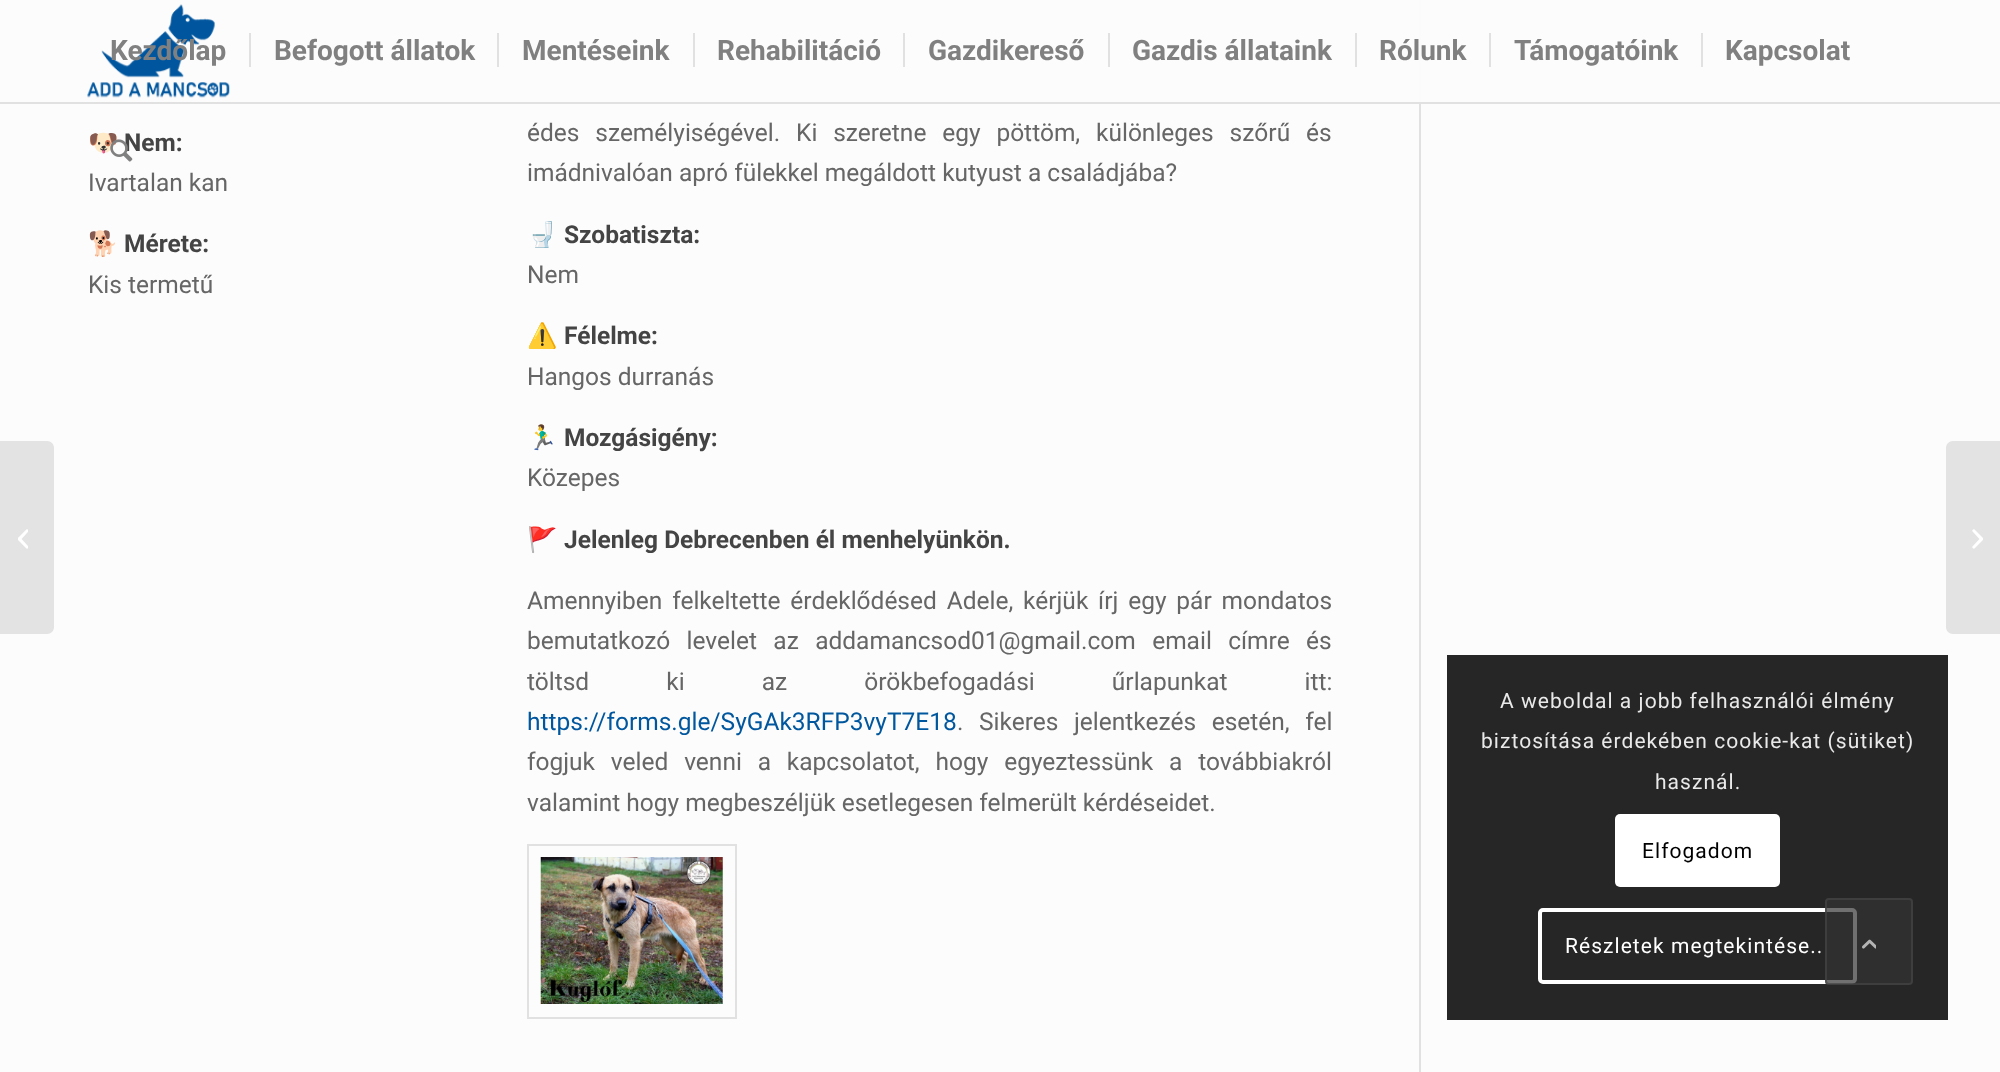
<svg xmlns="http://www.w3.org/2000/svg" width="2000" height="1072">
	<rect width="100%" height="100%" fill="#FCFCFC" />
	<rect x="1419" y="0" width="2" height="1072" fill="#E1E1E1" />
	<rect x="1419" y="0" width="2" height="102" fill="#FCFCFC" fill-opacity="0.95" />
	<rect x="0" y="102" width="2000" height="2" fill="#E1E1E1" />
	<image x="87" y="4" width="143" height="94" href="assets/img1.png" />
	<g font-family="Roboto" font-size="28" font-weight="700" fill="#808080">
		<text x="110" y="60">Kezdőlap</text>
		<text x="274" y="60">Befogott állatok</text>
	</g>
	<rect x="249" y="33" width="2" height="34" fill="#E1E1E1" />
	<text x="522" y="60" font-family="Roboto" font-size="28" font-weight="700" fill="#808080">Mentéseink</text>
	<rect x="497" y="33" width="2" height="34" fill="#E1E1E1" />
	<text x="717" y="60" font-family="Roboto" font-size="28" font-weight="700" fill="#808080">Rehabilitáció</text>
	<rect x="693" y="33" width="2" height="34" fill="#E1E1E1" />
	<text x="928" y="60" font-family="Roboto" font-size="28" font-weight="700" fill="#808080">Gazdikereső</text>
	<rect x="903" y="33" width="2" height="34" fill="#E1E1E1" />
	<text x="1132" y="60" font-family="Roboto" font-size="28" font-weight="700" fill="#808080">Gazdis állataink</text>
	<rect x="1108" y="33" width="2" height="34" fill="#E1E1E1" />
	<text x="1379" y="60" font-family="Roboto" font-size="28" font-weight="700" fill="#808080">Rólunk</text>
	<rect x="1355" y="33" width="2" height="34" fill="#E1E1E1" />
	<text x="1514" y="60" font-family="Roboto" font-size="28" font-weight="700" fill="#808080">Támogatóink</text>
	<rect x="1489" y="33" width="2" height="34" fill="#E1E1E1" />
	<text x="1725" y="60" font-family="Roboto" font-size="28" font-weight="700" fill="#808080">Kapcsolat</text>
	<rect x="1701" y="33" width="2" height="34" fill="#E1E1E1" />
	<text x="88" y="151" font-family="Noto Color Emoji" font-size="24.5" font-weight="700" fill="#444444">🐶</text>
	<text x="124" y="151" font-family="Roboto" font-size="24.5" font-weight="700" fill="#444444">Nem:</text>
	<image x="110" y="139" width="23" height="23" href="assets/img2.png" />
	<path d="M0 441H47C51 441 54 444 54 448V627C54 631 51 634 47 634H0Z" fill="#E3E3E3" />
	<image x="18" y="529" width="10" height="20" href="assets/img3.png" />
	<text x="88" y="191" font-family="Roboto" font-size="24.5" fill="#666666">Ivartalan kan</text>
	<text x="88" y="252" font-family="Noto Color Emoji" font-size="24.5" font-weight="700" fill="#444444">🐕</text>
	<text x="124" y="252" font-family="Roboto" font-size="24.5" font-weight="700" fill="#444444">Mérete:</text>
	<g font-family="Roboto" font-size="24.5" fill="#666666">
		<text x="88" y="293">Kis termetű</text>
		<text x="527" y="141" word-spacing="9.75">édes személyiségével. Ki szeretne egy pöttöm, különleges szőrű és</text>
		<text x="527" y="181">imádnivalóan apró fülekkel megáldott kutyust a családjába?</text>
	</g>
	<text x="527" y="243" font-family="Noto Color Emoji" font-size="24.5" font-weight="700" fill="#444444">🚽</text>
	<text x="564" y="243" font-family="Roboto" font-size="24.5" font-weight="700" fill="#444444">Szobatiszta:</text>
	<text x="527" y="283" font-family="Roboto" font-size="24.5" fill="#666666">Nem</text>
	<text x="527" y="344" font-family="Noto Color Emoji" font-size="24.5" font-weight="700" fill="#444444">⚠️</text>
	<text x="564" y="344" font-family="Roboto" font-size="24.5" font-weight="700" fill="#444444">Félelme:</text>
	<text x="527" y="385" font-family="Roboto" font-size="24.5" fill="#666666">Hangos durranás</text>
	<text x="527" y="446" font-family="Noto Color Emoji" font-size="24.5" font-weight="700" fill="#444444">🏃‍♂️</text>
	<text x="564" y="446" font-family="Roboto" font-size="24.5" font-weight="700" fill="#444444">Mozgásigény:</text>
	<text x="527" y="486" font-family="Roboto" font-size="24.5" fill="#666666">Közepes</text>
	<text x="527" y="548" font-family="Noto Color Emoji" font-size="24.5" fill="#666666">🚩</text>
	<text x="564" y="548" font-family="Roboto" font-size="24.5" font-weight="700" fill="#444444">Jelenleg Debrecenben él menhelyünkön.</text>
	<g font-family="Roboto" font-size="24.5" fill="#666666">
		<text x="527" y="609" word-spacing="3.75">Amennyiben felkeltette érdeklődésed Adele, kérjük írj egy pár mondatos</text>
		<text x="527" y="649" word-spacing="10.25">bemutatkozó levelet az addamancsod01@gmail.com email címre és</text>
		<text x="527" y="690" word-spacing="71">töltsd ki az örökbefogadási űrlapunkat itt:</text>
	</g>
	<text x="527" y="730" font-family="Roboto" font-size="24.5" fill="#00579E">https://forms.gle/SyGAk3RFP3vyT7E18</text>
	<g font-family="Roboto" font-size="24.5" fill="#666666">
		<text x="957" y="730" word-spacing="9.5">. Sikeres jelentkezés esetén, fel</text>
		<text x="527" y="770" word-spacing="9.75">fogjuk veled venni a kapcsolatot, hogy egyeztessünk a továbbiakról</text>
		<text x="527" y="811">valamint hogy megbeszéljük esetlegesen felmerült kérdéseidet.</text>
	</g>
	<rect x="528" y="845" width="208" height="173" fill="none" stroke="#E1E1E1" stroke-width="2" />
	<image x="540" y="857" width="183" height="147" href="assets/img4.png" />
	<path d="M1953 441H2000V634H1953C1949 634 1946 631 1946 627V448C1946 444 1949 441 1953 441Z" fill="#E3E3E3" />
	<image x="1972" y="529" width="11" height="20" href="assets/img5.png" />
	<rect x="1447" y="655" width="501" height="365" fill="#262626" />
	<g font-family="Roboto" font-size="21" letter-spacing="1.05" fill="#E9E9E9">
		<text x="1500" y="708">A weboldal a jobb felhasználói élmény</text>
		<text x="1481" y="748">biztosítása érdekében cookie-kat (sütiket)</text>
		<text x="1655" y="789">használ.</text>
	</g>
	<rect x="1615" y="814" width="165" height="73" rx="5" fill="#FFFFFF" />
	<text x="1642" y="858" font-family="Roboto" font-size="21" letter-spacing="1.05" fill="#000000">Elfogadom</text>
	<rect x="1540" y="910" width="315" height="72" rx="3" fill="none" stroke="#FFFFFF" stroke-width="4" />
	<text x="1565" y="953" font-family="Roboto" font-size="21" letter-spacing="1.05" fill="#FFFFFF">Részletek megtekintése..</text>
	<rect x="1825" y="898" width="88" height="87" rx="4" fill="#333333" fill-opacity="0.7" />
	<rect x="1826" y="899" width="86" height="85" rx="3" fill="none" stroke="#444444" stroke-opacity="0.7" stroke-width="2" />
	<image x="1862" y="939" width="14" height="10" href="assets/img6.png" />
</svg>
